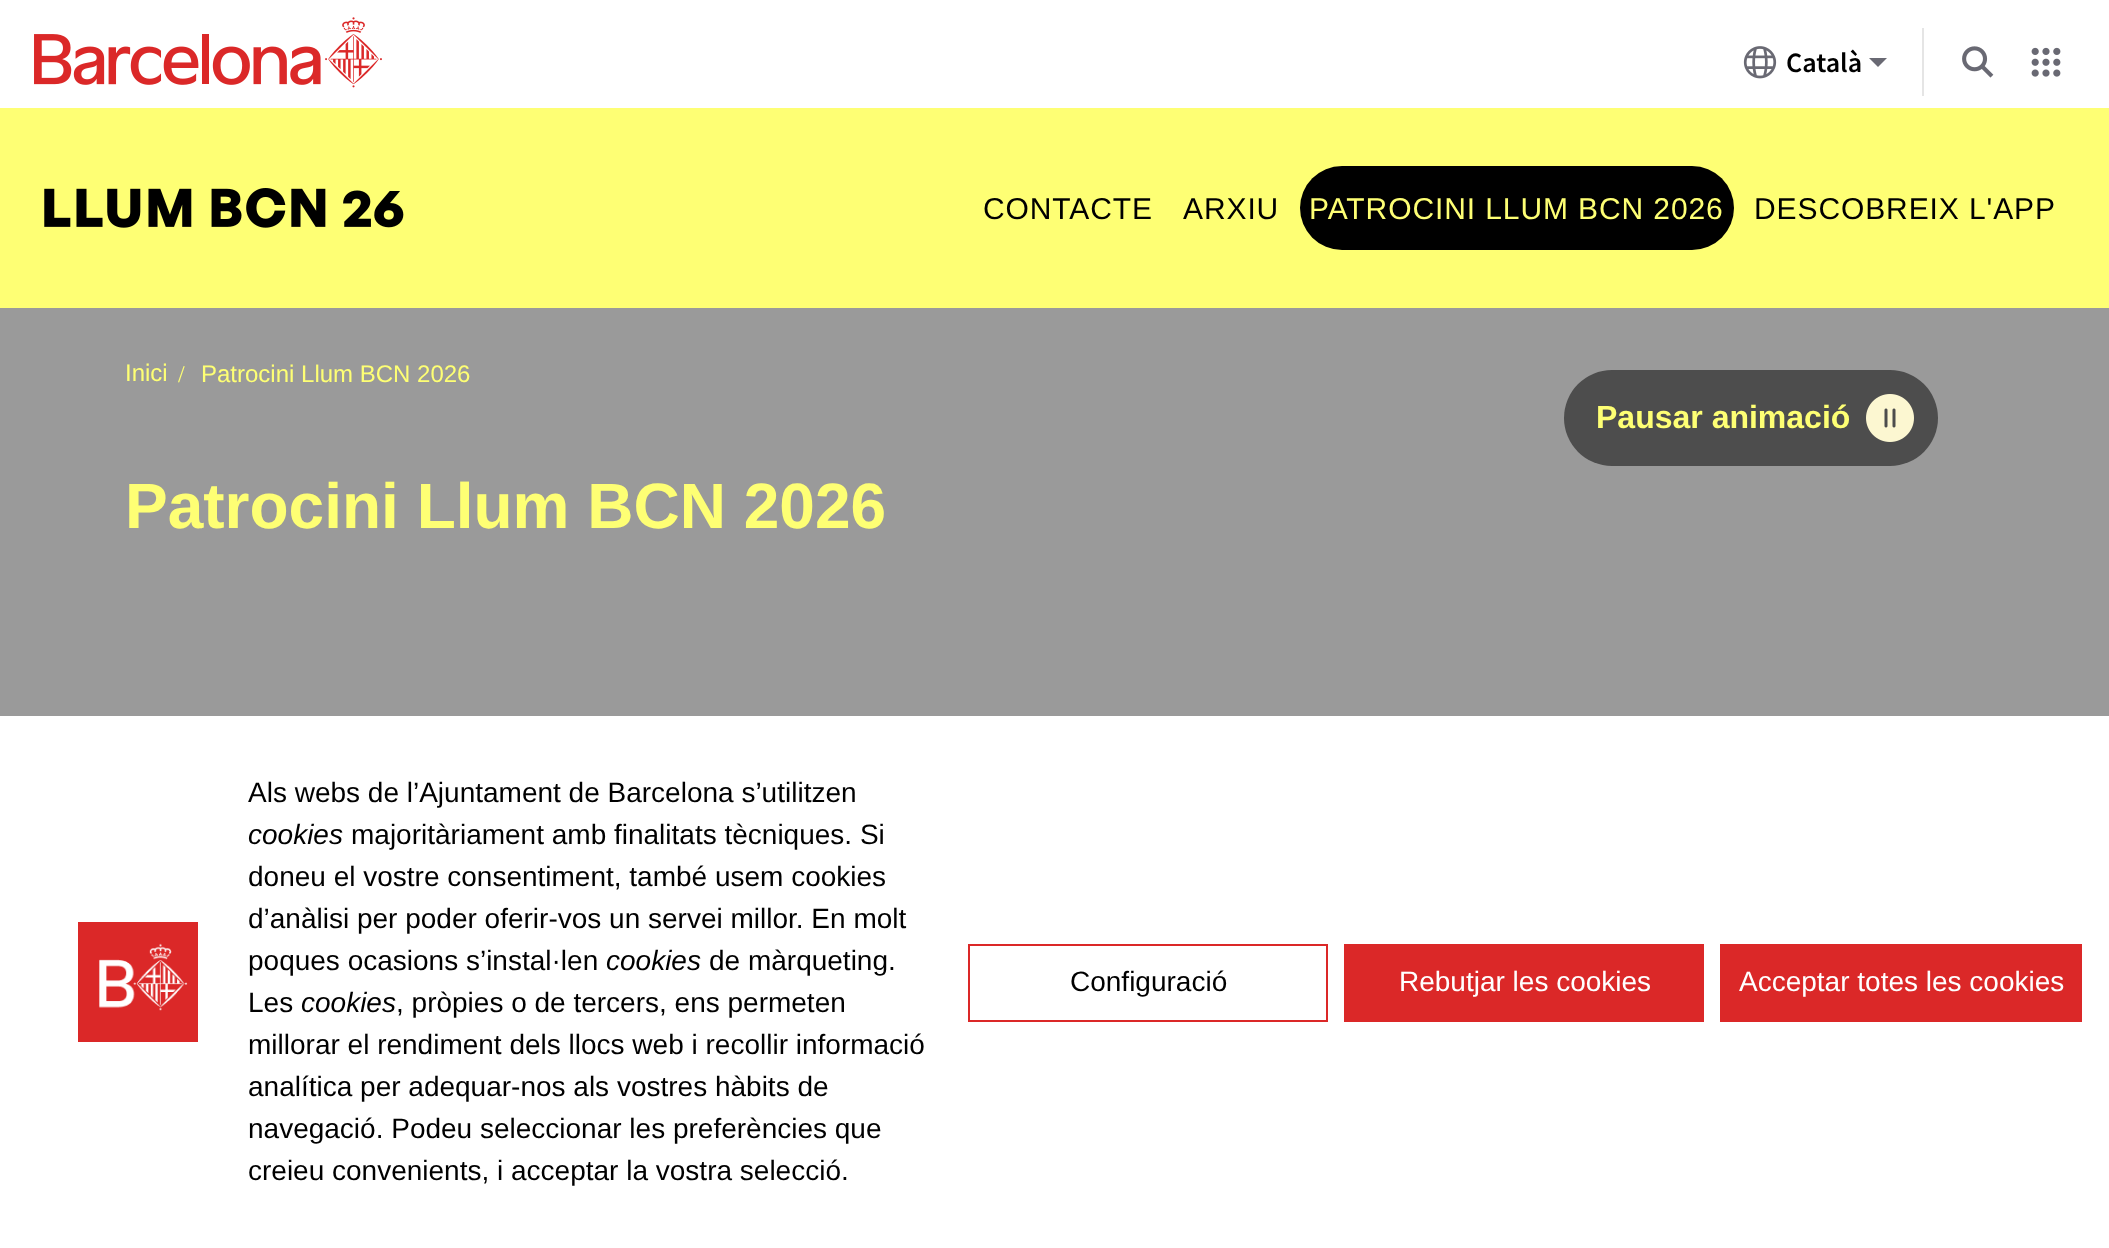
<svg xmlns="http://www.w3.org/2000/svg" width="2109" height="1248">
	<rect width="100%" height="100%" fill="#9A9A9A" />
	<rect x="0" y="0" width="2109" height="108" fill="#FFFFFF" />
	<image x="34" y="17" width="348" height="71" href="assets/img1.png" />
	<rect x="1922" y="28" width="2" height="68" fill="#E5E5E5" />
	<image x="1743" y="46" width="34" height="33" href="assets/img2.png" />
	<text x="1786" y="72" font-family="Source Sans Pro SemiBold" font-size="28" font-weight="600" fill="#000000">Català</text>
	<path d="M1869 58L1878 67L1887 58Z" fill="#696973" />
	<image x="1962" y="46" width="32" height="32" href="assets/img3.png" />
	<image x="2031" y="47" width="30" height="30" href="assets/img4.png" />
	<rect x="0" y="108" width="2109" height="200" fill="#FEFF74" />
	<image x="44" y="188" width="360" height="40" href="assets/img5.png" />
	<g font-family="Liberation Sans" font-size="30" letter-spacing="0.9" fill="#000000">
		<text x="983" y="219">CONTACTE</text>
		<text x="1183" y="219">ARXIU</text>
	</g>
	<rect x="1300" y="166" width="434" height="84" rx="42" fill="#000000" />
	<text x="1309" y="219" font-family="Liberation Sans" font-size="30" letter-spacing="0.9" fill="#FEFF74">PATROCINI LLUM BCN 2026</text>
	<text x="1754" y="219" font-family="Liberation Sans" font-size="30" letter-spacing="0.9" fill="#000000">DESCOBREIX L'APP</text>
	<text x="125" y="381" font-family="Liberation Sans" font-size="24" fill="#FEFF74">Inici</text>
	<text x="178" y="382" font-family="Liberation Serif" font-size="24" fill="#FEFF74">/</text>
	<text x="201" y="382" font-family="Liberation Sans" font-size="24" fill="#FEFF74">Patrocini Llum BCN 2026</text>
	<rect x="1564" y="370" width="374" height="96" rx="48" fill="#4D4D4D" />
	<text x="1596" y="428" font-family="Liberation Sans" font-size="32" font-weight="700" fill="#FEFF74">Pausar animació</text>
	<image x="1866" y="394" width="48" height="48" href="assets/img6.png" />
	<text x="125" y="528" font-family="Liberation Sans" font-size="64" font-weight="700" fill="#FEFF74">Patrocini Llum BCN 2026</text>
	<rect x="0" y="716" width="2109" height="532" fill="#FFFFFF" />
	<image x="78" y="922" width="120" height="120" href="assets/img7.png" />
	<text x="248" y="802" font-family="Liberation Sans" font-size="28" fill="#000000">Als webs de l’Ajuntament de Barcelona s’utilitzen</text>
	<text x="248" y="844" font-family="Liberation Sans" font-size="28" font-style="italic" fill="#000000">cookies</text>
	<g font-family="Liberation Sans" font-size="28" fill="#000000">
		<text x="351" y="844">majoritàriament amb finalitats tècniques. Si</text>
		<text x="248" y="886">doneu el vostre consentiment, també usem cookies</text>
		<text x="248" y="928">d’anàlisi per poder oferir-vos un servei millor. En molt</text>
		<text x="248" y="970">poques ocasions s’instal·len</text>
	</g>
	<text x="606" y="970" font-family="Liberation Sans" font-size="28" font-style="italic" fill="#000000">cookies</text>
	<g font-family="Liberation Sans" font-size="28" fill="#000000">
		<text x="709" y="970">de màrqueting.</text>
		<text x="248" y="1012">Les</text>
	</g>
	<text x="301" y="1012" font-family="Liberation Sans" font-size="28" font-style="italic" fill="#000000">cookies</text>
	<g font-family="Liberation Sans" font-size="28" fill="#000000">
		<text x="396" y="1012">, pròpies o de tercers, ens permeten</text>
		<text x="248" y="1054">millorar el rendiment dels llocs web i recollir informació</text>
		<text x="248" y="1096">analítica per adequar-nos als vostres hàbits de</text>
		<text x="248" y="1138">navegació. Podeu seleccionar les preferències que</text>
		<text x="248" y="1180">creieu convenients, i acceptar la vostra selecció.</text>
	</g>
	<rect x="969" y="945" width="358" height="76" fill="none" stroke="#DB2828" stroke-width="2" />
	<text x="1070" y="991" font-family="Liberation Sans" font-size="28" fill="#000000">Configuració</text>
	<rect x="1344" y="944" width="360" height="78" fill="#DB2828" />
	<text x="1399" y="991" font-family="Liberation Sans" font-size="28" fill="#FFFFFF">Rebutjar les cookies</text>
	<rect x="1720" y="944" width="362" height="78" fill="#DB2828" />
	<text x="1739" y="991" font-family="Liberation Sans" font-size="28" fill="#FFFFFF">Acceptar totes les cookies</text>
</svg>
